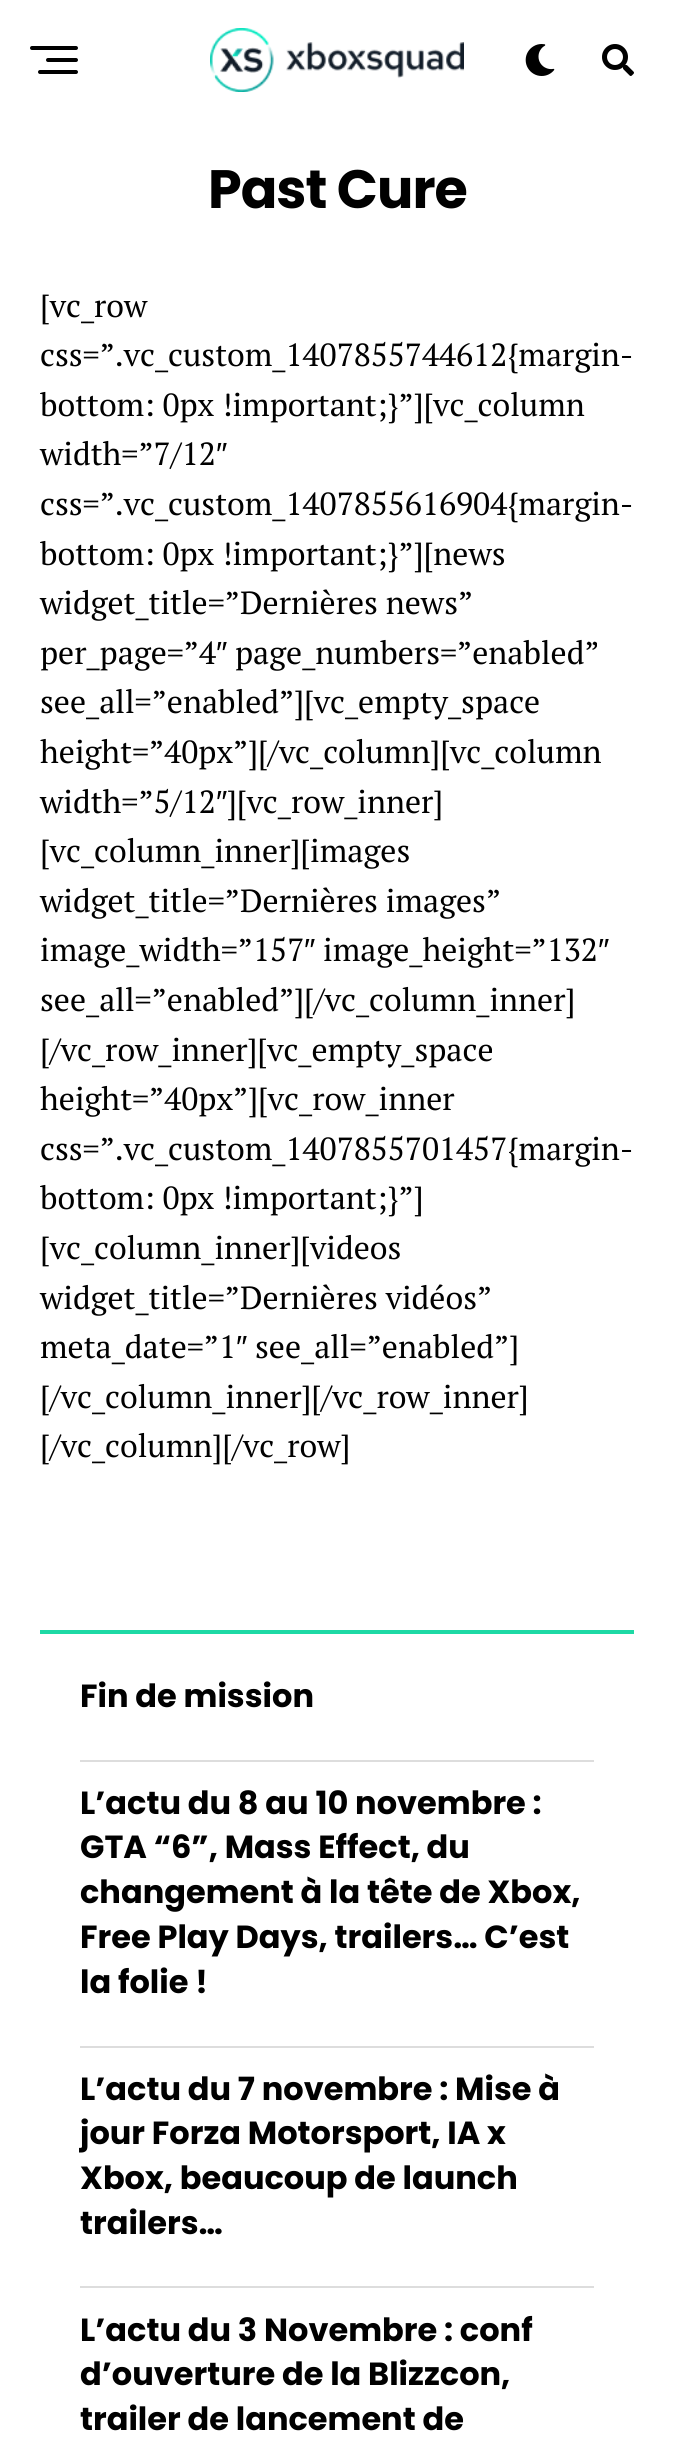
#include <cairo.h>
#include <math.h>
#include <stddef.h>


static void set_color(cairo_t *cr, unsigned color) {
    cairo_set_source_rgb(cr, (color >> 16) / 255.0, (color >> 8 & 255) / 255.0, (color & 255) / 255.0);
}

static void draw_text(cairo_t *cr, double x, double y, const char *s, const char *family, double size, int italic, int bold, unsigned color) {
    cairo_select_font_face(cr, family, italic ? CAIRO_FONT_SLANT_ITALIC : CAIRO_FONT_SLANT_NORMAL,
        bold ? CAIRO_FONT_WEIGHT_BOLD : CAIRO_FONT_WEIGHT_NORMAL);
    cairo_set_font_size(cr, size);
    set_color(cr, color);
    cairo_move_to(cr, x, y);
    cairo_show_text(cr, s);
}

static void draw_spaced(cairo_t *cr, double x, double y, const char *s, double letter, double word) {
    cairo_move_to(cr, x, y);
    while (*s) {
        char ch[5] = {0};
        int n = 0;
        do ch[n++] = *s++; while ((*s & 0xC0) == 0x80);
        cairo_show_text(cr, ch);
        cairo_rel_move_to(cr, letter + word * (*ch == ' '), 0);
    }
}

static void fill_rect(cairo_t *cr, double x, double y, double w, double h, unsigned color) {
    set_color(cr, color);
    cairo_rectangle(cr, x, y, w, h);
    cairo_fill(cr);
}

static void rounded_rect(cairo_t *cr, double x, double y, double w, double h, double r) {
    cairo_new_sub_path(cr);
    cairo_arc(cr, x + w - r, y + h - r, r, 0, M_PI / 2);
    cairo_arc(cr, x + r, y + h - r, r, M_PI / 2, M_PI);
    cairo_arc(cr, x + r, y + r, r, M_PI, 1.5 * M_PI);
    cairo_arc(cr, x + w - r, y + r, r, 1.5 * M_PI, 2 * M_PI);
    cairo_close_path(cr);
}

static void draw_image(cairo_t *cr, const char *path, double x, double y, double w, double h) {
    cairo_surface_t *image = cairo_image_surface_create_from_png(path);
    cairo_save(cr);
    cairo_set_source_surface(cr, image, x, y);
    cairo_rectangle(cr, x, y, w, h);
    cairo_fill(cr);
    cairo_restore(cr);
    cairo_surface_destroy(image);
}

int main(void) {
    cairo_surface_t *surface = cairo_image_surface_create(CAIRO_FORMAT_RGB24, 673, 2448);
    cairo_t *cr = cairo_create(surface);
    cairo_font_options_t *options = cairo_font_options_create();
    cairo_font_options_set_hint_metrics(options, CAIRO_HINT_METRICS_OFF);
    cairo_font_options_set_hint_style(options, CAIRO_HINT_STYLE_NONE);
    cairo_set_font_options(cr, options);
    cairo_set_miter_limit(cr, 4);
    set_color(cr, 0xFFFFFF);
    cairo_paint(cr);
    set_color(cr, 0x000000);
    rounded_rect(cr, 30, 46, 48, 4, 2);
    cairo_fill(cr);
    rounded_rect(cr, 46, 58, 32, 4, 2);
    cairo_fill(cr);
    rounded_rect(cr, 38, 70, 40, 4, 2);
    cairo_fill(cr);
    draw_image(cr, "assets/img1.png", 210, 28, 254, 64);
    draw_image(cr, "assets/img2.png", 525, 44, 30, 32);
    draw_image(cr, "assets/img3.png", 602, 44, 32, 32);
    cairo_select_font_face(cr, "Poppins", CAIRO_FONT_SLANT_NORMAL, CAIRO_FONT_WEIGHT_BOLD);
    cairo_set_font_size(cr, 54);
    draw_spaced(cr, 208, 208, "Past Cure", -1, 0);
    draw_text(cr, 40, 317, "[vc_row", "PT Serif", 32, 0, 0, 0x000000);
    draw_text(cr, 40, 366, "css=”.vc_custom_1407855744612{margin-", "PT Serif", 32, 0, 0, 0x000000);
    draw_text(cr, 40, 416, "bottom: 0px !important;}”][vc_column", "PT Serif", 32, 0, 0, 0x000000);
    draw_text(cr, 40, 465, "width=”7/12", "PT Serif", 32, 0, 0, 0x000000);
    draw_text(cr, 216, 465, "″", "Liberation Sans", 32, 0, 0, 0x000000);
    draw_text(cr, 40, 515, "css=”.vc_custom_1407855616904{margin-", "PT Serif", 32, 0, 0, 0x000000);
    draw_text(cr, 40, 565, "bottom: 0px !important;}”][news", "PT Serif", 32, 0, 0, 0x000000);
    draw_text(cr, 40, 614, "widget_title=”Dernières news”", "PT Serif", 32, 0, 0, 0x000000);
    draw_text(cr, 40, 664, "per_page=”4", "PT Serif", 32, 0, 0, 0x000000);
    draw_text(cr, 216, 664, "″", "Liberation Sans", 32, 0, 0, 0x000000);
    draw_text(cr, 235, 664, "page_numbers=”enabled”", "PT Serif", 32, 0, 0, 0x000000);
    draw_text(cr, 40, 713, "see_all=”enabled”][vc_empty_space", "PT Serif", 32, 0, 0, 0x000000);
    draw_text(cr, 40, 763, "height=”40px”][/vc_column][vc_column", "PT Serif", 32, 0, 0, 0x000000);
    draw_text(cr, 40, 813, "width=”5/12", "PT Serif", 32, 0, 0, 0x000000);
    draw_text(cr, 216, 813, "″", "Liberation Sans", 32, 0, 0, 0x000000);
    draw_text(cr, 227, 813, "][vc_row_inner]", "PT Serif", 32, 0, 0, 0x000000);
    draw_text(cr, 40, 862, "[vc_column_inner][images", "PT Serif", 32, 0, 0, 0x000000);
    draw_text(cr, 40, 912, "widget_title=”Dernières images”", "PT Serif", 32, 0, 0, 0x000000);
    draw_text(cr, 40, 961, "image_width=”157", "PT Serif", 32, 0, 0, 0x000000);
    draw_text(cr, 304, 961, "″", "Liberation Sans", 32, 0, 0, 0x000000);
    draw_text(cr, 323, 961, "image_height=”132", "PT Serif", 32, 0, 0, 0x000000);
    draw_text(cr, 598, 961, "″", "Liberation Sans", 32, 0, 0, 0x000000);
    draw_text(cr, 40, 1011, "see_all=”enabled”][/vc_column_inner]", "PT Serif", 32, 0, 0, 0x000000);
    draw_text(cr, 40, 1061, "[/vc_row_inner][vc_empty_space", "PT Serif", 32, 0, 0, 0x000000);
    draw_text(cr, 40, 1110, "height=”40px”][vc_row_inner", "PT Serif", 32, 0, 0, 0x000000);
    draw_text(cr, 40, 1160, "css=”.vc_custom_1407855701457{margin-", "PT Serif", 32, 0, 0, 0x000000);
    draw_text(cr, 40, 1209, "bottom: 0px !important;}”]", "PT Serif", 32, 0, 0, 0x000000);
    draw_text(cr, 40, 1259, "[vc_column_inner][videos", "PT Serif", 32, 0, 0, 0x000000);
    draw_text(cr, 40, 1309, "widget_title=”Dernières vidéos”", "PT Serif", 32, 0, 0, 0x000000);
    draw_text(cr, 40, 1358, "meta_date=”1", "PT Serif", 32, 0, 0, 0x000000);
    draw_text(cr, 236, 1358, "″", "Liberation Sans", 32, 0, 0, 0x000000);
    draw_text(cr, 255, 1358, "see_all=”enabled”]", "PT Serif", 32, 0, 0, 0x000000);
    draw_text(cr, 40, 1408, "[/vc_column_inner][/vc_row_inner]", "PT Serif", 32, 0, 0, 0x000000);
    draw_text(cr, 40, 1457, "[/vc_column][/vc_row]", "PT Serif", 32, 0, 0, 0x000000);
    fill_rect(cr, 40, 1630, 594, 4, 0x1DD9A5);
    draw_text(cr, 80, 1707, "Fin de mission", "Poppins", 32, 0, 1, 0x000000);
    fill_rect(cr, 80, 1760, 514, 2, 0xDDDDDD);
    draw_text(cr, 80, 1814, "L’actu du 8 au 10 novembre :", "Poppins", 32, 0, 1, 0x000000);
    draw_text(cr, 80, 1858, "GTA “6”, Mass Effect, du", "Poppins", 32, 0, 1, 0x000000);
    draw_text(cr, 80, 1903, "changement à la tête de Xbox,", "Poppins", 32, 0, 1, 0x000000);
    draw_text(cr, 80, 1948, "Free Play Days, trailers… C’est", "Poppins", 32, 0, 1, 0x000000);
    draw_text(cr, 80, 1993, "la folie !", "Poppins", 32, 0, 1, 0x000000);
    fill_rect(cr, 80, 2046, 514, 2, 0xDDDDDD);
    draw_text(cr, 80, 2100, "L’actu du 7 novembre : Mise à", "Poppins", 32, 0, 1, 0x000000);
    draw_text(cr, 80, 2144, "jour Forza Motorsport, IA x", "Poppins", 32, 0, 1, 0x000000);
    draw_text(cr, 80, 2189, "Xbox, beaucoup de launch", "Poppins", 32, 0, 1, 0x000000);
    draw_text(cr, 80, 2234, "trailers…", "Poppins", 32, 0, 1, 0x000000);
    fill_rect(cr, 80, 2286, 514, 2, 0xDDDDDD);
    draw_text(cr, 80, 2341, "L’actu du 3 Novembre : conf", "Poppins", 32, 0, 1, 0x000000);
    draw_text(cr, 80, 2385, "d’ouverture de la Blizzcon,", "Poppins", 32, 0, 1, 0x000000);
    draw_text(cr, 80, 2430, "trailer de lancement de", "Poppins", 32, 0, 1, 0x000000);
    cairo_surface_write_to_png(surface, "output.png");
    cairo_font_options_destroy(options);
    cairo_destroy(cr);
    cairo_surface_destroy(surface);
    return 0;
}
